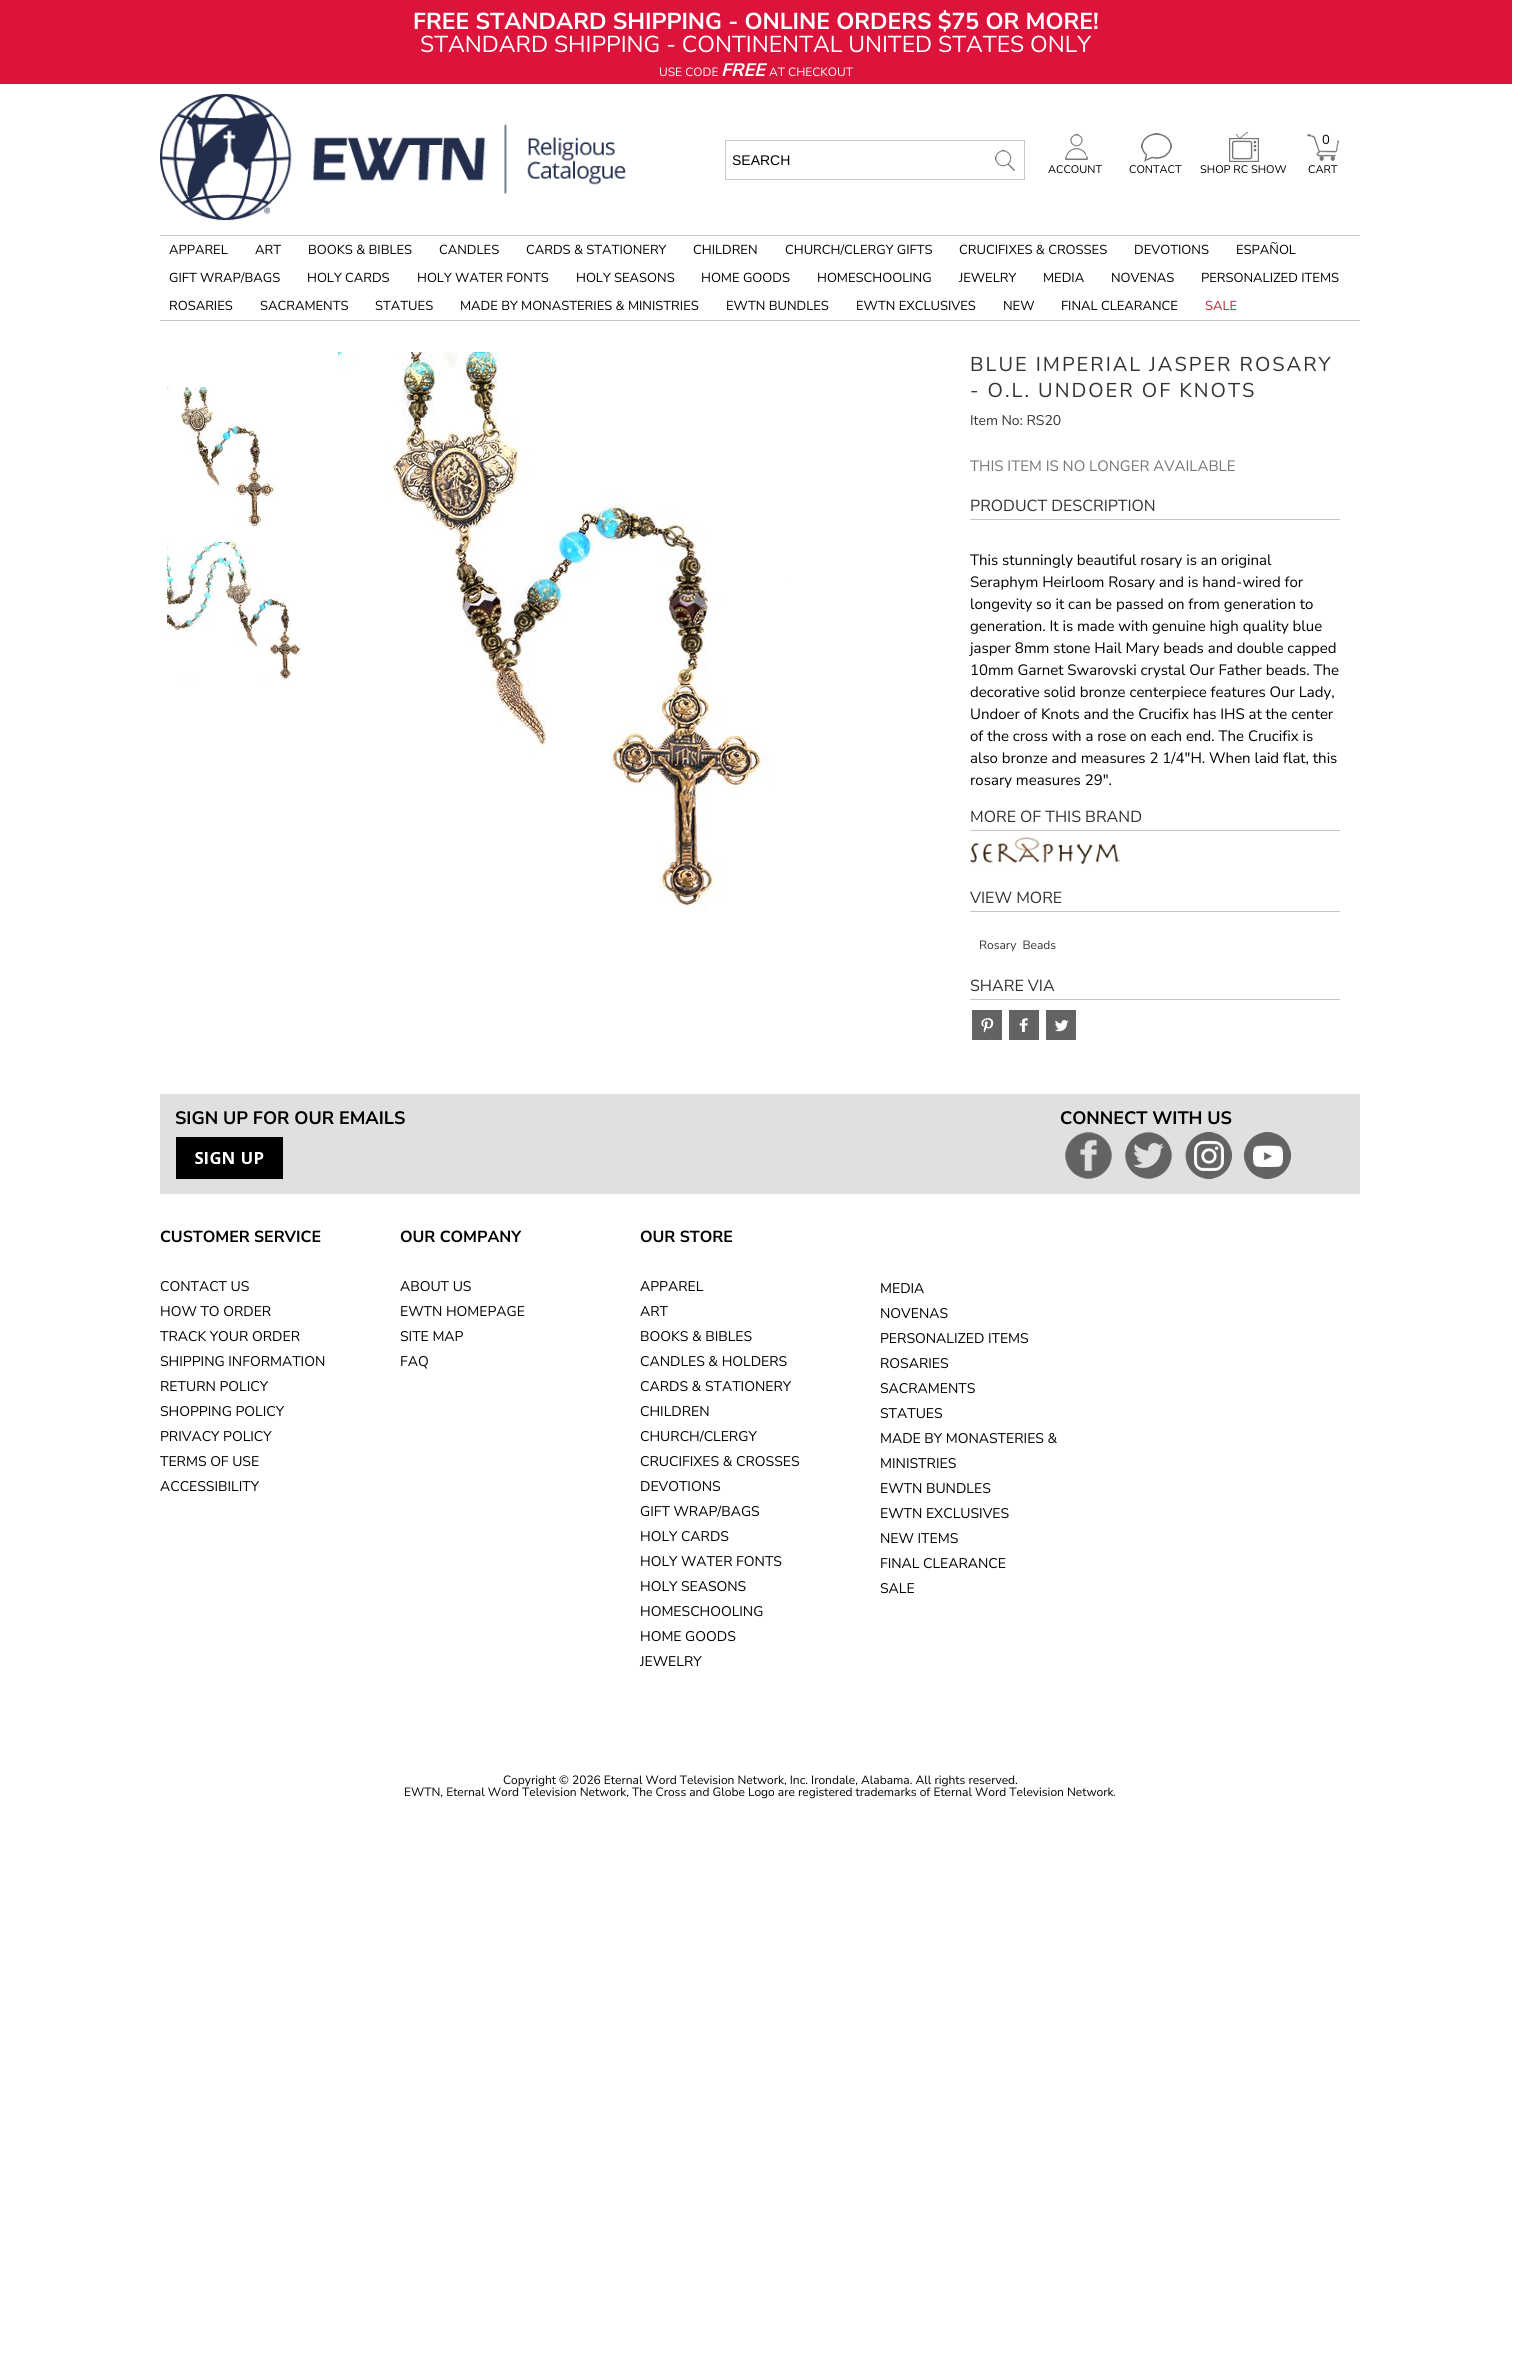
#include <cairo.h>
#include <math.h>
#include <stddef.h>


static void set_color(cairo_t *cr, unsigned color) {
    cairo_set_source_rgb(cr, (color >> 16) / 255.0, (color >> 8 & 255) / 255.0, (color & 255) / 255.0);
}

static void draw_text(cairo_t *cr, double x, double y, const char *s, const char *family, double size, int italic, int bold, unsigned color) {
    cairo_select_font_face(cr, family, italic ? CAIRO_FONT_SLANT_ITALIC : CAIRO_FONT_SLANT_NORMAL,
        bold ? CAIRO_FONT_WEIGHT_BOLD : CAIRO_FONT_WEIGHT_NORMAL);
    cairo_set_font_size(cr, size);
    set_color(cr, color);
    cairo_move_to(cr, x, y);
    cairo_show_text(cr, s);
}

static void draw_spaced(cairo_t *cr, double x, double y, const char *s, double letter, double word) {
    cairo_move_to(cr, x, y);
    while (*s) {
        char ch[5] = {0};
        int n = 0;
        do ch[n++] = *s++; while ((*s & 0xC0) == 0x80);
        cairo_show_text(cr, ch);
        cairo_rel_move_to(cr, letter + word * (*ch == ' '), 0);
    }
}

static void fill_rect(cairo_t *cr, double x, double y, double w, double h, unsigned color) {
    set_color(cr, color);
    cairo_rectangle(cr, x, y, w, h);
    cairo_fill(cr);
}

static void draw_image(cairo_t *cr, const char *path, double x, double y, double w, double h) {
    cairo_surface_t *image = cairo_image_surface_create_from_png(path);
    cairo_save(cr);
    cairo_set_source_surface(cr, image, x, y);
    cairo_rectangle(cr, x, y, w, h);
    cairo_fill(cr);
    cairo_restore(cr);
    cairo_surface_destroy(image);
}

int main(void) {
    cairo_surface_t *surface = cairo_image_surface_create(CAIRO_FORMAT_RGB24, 1520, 2364);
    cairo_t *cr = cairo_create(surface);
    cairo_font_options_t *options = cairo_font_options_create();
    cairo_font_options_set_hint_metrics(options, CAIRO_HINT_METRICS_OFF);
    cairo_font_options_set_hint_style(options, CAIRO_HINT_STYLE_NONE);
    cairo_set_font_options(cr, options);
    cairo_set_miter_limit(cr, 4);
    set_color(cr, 0xFFFFFF);
    cairo_paint(cr);
    fill_rect(cr, 0, 0, 1512, 84, 0xDC143C);
    draw_text(cr, 413, 29, "FREE STANDARD SHIPPING - ONLINE ORDERS $75 OR MORE!", "Nunito Sans", 23, 0, 1, 0xFFFFFF);
    draw_text(cr, 420, 52, "STANDARD SHIPPING - CONTINENTAL UNITED STATES ONLY", "Nunito Sans", 23, 0, 0, 0xFFFFFF);
    draw_text(cr, 659, 76, "USE CODE", "Nunito Sans", 12, 0, 0, 0xFFFFFF);
    draw_text(cr, 721, 76, "FREE", "Nunito Sans", 18, 1, 1, 0xFFFFFF);
    draw_text(cr, 769, 76, "AT CHECKOUT", "Nunito Sans", 12, 0, 0, 0xFFFFFF);
    cairo_rectangle(cr, 725.5, 140.5, 299, 39);
    set_color(cr, 0xC7C6C2);
    cairo_set_line_width(cr, 1);
    cairo_stroke(cr);
    draw_text(cr, 732, 165, "SEARCH", "Liberation Sans", 14, 0, 0, 0x000000);
    draw_image(cr, "assets/img1.png", 995, 150, 20, 21);
    draw_image(cr, "assets/img2.png", 160, 94, 466, 127);
    draw_image(cr, "assets/img3.png", 1065, 134, 23, 26);
    draw_text(cr, 1048, 173, "ACCOUNT", "Nunito Sans", 11, 0, 0, 0x000000);
    draw_image(cr, "assets/img4.png", 1141, 133, 31, 29);
    draw_text(cr, 1129, 173, "CONTACT", "Nunito Sans", 11, 0, 0, 0x000000);
    draw_image(cr, "assets/img5.png", 1229, 132, 30, 30);
    draw_text(cr, 1200, 173, "SHOP RC SHOW", "Nunito Sans", 11, 0, 0, 0x000000);
    draw_image(cr, "assets/img6.png", 1307, 134, 32, 27);
    draw_text(cr, 1322, 144, "0", "Nunito Sans", 13, 0, 0, 0x000000);
    draw_text(cr, 1308, 173, "CART", "Nunito Sans", 11, 0, 0, 0x000000);
    fill_rect(cr, 160, 235, 1200, 1, 0xC7C6C2);
    fill_rect(cr, 160, 320, 1200, 1, 0xC7C6C2);
    draw_text(cr, 169, 254, "APPAREL", "Nunito Sans", 13, 0, 0, 0x000000);
    draw_text(cr, 255, 254, "ART", "Nunito Sans", 13, 0, 0, 0x000000);
    draw_text(cr, 308, 254, "BOOKS & BIBLES", "Nunito Sans", 13, 0, 0, 0x000000);
    draw_text(cr, 439, 254, "CANDLES", "Nunito Sans", 13, 0, 0, 0x000000);
    draw_text(cr, 526, 254, "CARDS & STATIONERY", "Nunito Sans", 13, 0, 0, 0x000000);
    draw_text(cr, 693, 254, "CHILDREN", "Nunito Sans", 13, 0, 0, 0x000000);
    draw_text(cr, 785, 254, "CHURCH/CLERGY GIFTS", "Nunito Sans", 13, 0, 0, 0x000000);
    draw_text(cr, 959, 254, "CRUCIFIXES & CROSSES", "Nunito Sans", 13, 0, 0, 0x000000);
    draw_text(cr, 1134, 254, "DEVOTIONS", "Nunito Sans", 13, 0, 0, 0x000000);
    draw_text(cr, 1236, 254, "ESPAÑOL", "Nunito Sans", 13, 0, 0, 0x000000);
    draw_text(cr, 169, 282, "GIFT WRAP/BAGS", "Nunito Sans", 13, 0, 0, 0x000000);
    draw_text(cr, 307, 282, "HOLY CARDS", "Nunito Sans", 13, 0, 0, 0x000000);
    draw_text(cr, 417, 282, "HOLY WATER FONTS", "Nunito Sans", 13, 0, 0, 0x000000);
    draw_text(cr, 576, 282, "HOLY SEASONS", "Nunito Sans", 13, 0, 0, 0x000000);
    draw_text(cr, 701, 282, "HOME GOODS", "Nunito Sans", 13, 0, 0, 0x000000);
    draw_text(cr, 817, 282, "HOMESCHOOLING", "Nunito Sans", 13, 0, 0, 0x000000);
    draw_text(cr, 959, 282, "JEWELRY", "Nunito Sans", 13, 0, 0, 0x000000);
    draw_text(cr, 1043, 282, "MEDIA", "Nunito Sans", 13, 0, 0, 0x000000);
    draw_text(cr, 1111, 282, "NOVENAS", "Nunito Sans", 13, 0, 0, 0x000000);
    draw_text(cr, 1201, 282, "PERSONALIZED ITEMS", "Nunito Sans", 13, 0, 0, 0x000000);
    draw_text(cr, 169, 310, "ROSARIES", "Nunito Sans", 13, 0, 0, 0x000000);
    draw_text(cr, 260, 310, "SACRAMENTS", "Nunito Sans", 13, 0, 0, 0x000000);
    draw_text(cr, 375, 310, "STATUES", "Nunito Sans", 13, 0, 0, 0x000000);
    draw_text(cr, 460, 310, "MADE BY MONASTERIES & MINISTRIES", "Nunito Sans", 13, 0, 0, 0x000000);
    draw_text(cr, 726, 310, "EWTN BUNDLES", "Nunito Sans", 13, 0, 0, 0x000000);
    draw_text(cr, 856, 310, "EWTN EXCLUSIVES", "Nunito Sans", 13, 0, 0, 0x000000);
    draw_text(cr, 1003, 310, "NEW", "Nunito Sans", 13, 0, 0, 0x000000);
    draw_text(cr, 1061, 310, "FINAL CLEARANCE", "Nunito Sans", 13, 0, 0, 0x000000);
    draw_text(cr, 1205, 310, "SALE", "Nunito Sans", 13, 0, 0, 0xB92438);
    draw_image(cr, "assets/img7.png", 167, 387, 109, 141);
    draw_image(cr, "assets/img8.png", 167, 542, 134, 139);
    draw_image(cr, "assets/img9.png", 338, 352, 453, 560);
    cairo_set_font_size(cr, 20);
    set_color(cr, 0x333333);
    draw_spaced(cr, 970, 371, "BLUE IMPERIAL JASPER ROSARY", 2, 0);
    draw_spaced(cr, 970, 397, "- O.L. UNDOER OF KNOTS", 2, 0);
    draw_text(cr, 970, 425, "Item No: RS20", "Nunito Sans", 14, 0, 0, 0x333333);
    draw_text(cr, 970, 471, "THIS ITEM IS NO LONGER AVAILABLE", "Nunito Sans", 15, 0, 0, 0x737577);
    fill_rect(cr, 970, 519, 370, 1, 0xC7C6C2);
    draw_text(cr, 970, 511, "PRODUCT DESCRIPTION", "Nunito Sans", 16, 0, 0, 0x333333);
    draw_text(cr, 970, 565, "This stunningly beautiful rosary is an original", "Nunito Sans", 15, 0, 0, 0x000000);
    draw_text(cr, 970, 587, "Seraphym Heirloom Rosary and is hand-wired for", "Nunito Sans", 15, 0, 0, 0x000000);
    draw_text(cr, 970, 609, "longevity so it can be passed on from generation to", "Nunito Sans", 15, 0, 0, 0x000000);
    draw_text(cr, 970, 631, "generation. It is made with genuine high quality blue", "Nunito Sans", 15, 0, 0, 0x000000);
    draw_text(cr, 970, 653, "jasper 8mm stone Hail Mary beads and double capped", "Nunito Sans", 15, 0, 0, 0x000000);
    draw_text(cr, 970, 675, "10mm Garnet Swarovski crystal Our Father beads. The", "Nunito Sans", 15, 0, 0, 0x000000);
    draw_text(cr, 970, 697, "decorative solid bronze centerpiece features Our Lady,", "Nunito Sans", 15, 0, 0, 0x000000);
    draw_text(cr, 970, 719, "Undoer of Knots and the Crucifix has IHS at the center", "Nunito Sans", 15, 0, 0, 0x000000);
    draw_text(cr, 970, 741, "of the cross with a rose on each end. The Crucifix is", "Nunito Sans", 15, 0, 0, 0x000000);
    draw_text(cr, 970, 763, "also bronze and measures 2 1/4\"H. When laid flat, this", "Nunito Sans", 15, 0, 0, 0x000000);
    draw_text(cr, 970, 785, "rosary measures 29\".", "Nunito Sans", 15, 0, 0, 0x000000);
    fill_rect(cr, 970, 830, 370, 1, 0xC7C6C2);
    draw_text(cr, 970, 822, "MORE OF THIS BRAND", "Nunito Sans", 16, 0, 0, 0x333333);
    draw_image(cr, "assets/img10.png", 970, 837, 150, 28);
    fill_rect(cr, 970, 911, 370, 1, 0xC7C6C2);
    draw_text(cr, 970, 903, "VIEW MORE", "Nunito Sans", 16, 0, 0, 0x333333);
    cairo_set_font_size(cr, 12);
    draw_spaced(cr, 979, 949, "Rosary Beads", 0, 3);
    fill_rect(cr, 970, 999, 370, 1, 0xC7C6C2);
    draw_text(cr, 970, 991, "SHARE VIA", "Nunito Sans", 16, 0, 0, 0x333333);
    draw_image(cr, "assets/img11.png", 972, 1010, 30, 30);
    draw_image(cr, "assets/img12.png", 1009, 1010, 30, 30);
    draw_image(cr, "assets/img13.png", 1046, 1010, 30, 30);
    fill_rect(cr, 160, 1094, 1200, 100, 0xE0E0E0);
    draw_text(cr, 175, 1124, "SIGN UP FOR OUR EMAILS", "Nunito Sans", 18, 0, 1, 0x000000);
    draw_image(cr, "assets/img14.png", 176, 1137, 107, 42);
    draw_text(cr, 1060, 1124, "CONNECT WITH US", "Nunito Sans", 18, 0, 1, 0x000000);
    draw_image(cr, "assets/img15.png", 1065, 1132, 47, 47);
    draw_image(cr, "assets/img16.png", 1125, 1132, 47, 47);
    draw_image(cr, "assets/img17.png", 1185, 1132, 47, 47);
    draw_image(cr, "assets/img18.png", 1244, 1132, 47, 47);
    draw_text(cr, 160, 1242, "CUSTOMER SERVICE", "Nunito Sans", 16, 0, 1, 0x000000);
    draw_text(cr, 160, 1291, "CONTACT US", "Nunito Sans", 14, 0, 0, 0x000000);
    draw_text(cr, 160, 1316, "HOW TO ORDER", "Nunito Sans", 14, 0, 0, 0x000000);
    draw_text(cr, 160, 1341, "TRACK YOUR ORDER", "Nunito Sans", 14, 0, 0, 0x000000);
    draw_text(cr, 160, 1366, "SHIPPING INFORMATION", "Nunito Sans", 14, 0, 0, 0x000000);
    draw_text(cr, 160, 1391, "RETURN POLICY", "Nunito Sans", 14, 0, 0, 0x000000);
    draw_text(cr, 160, 1416, "SHOPPING POLICY", "Nunito Sans", 14, 0, 0, 0x000000);
    draw_text(cr, 160, 1441, "PRIVACY POLICY", "Nunito Sans", 14, 0, 0, 0x000000);
    draw_text(cr, 160, 1466, "TERMS OF USE", "Nunito Sans", 14, 0, 0, 0x000000);
    draw_text(cr, 160, 1491, "ACCESSIBILITY", "Nunito Sans", 14, 0, 0, 0x000000);
    draw_text(cr, 400, 1242, "OUR COMPANY", "Nunito Sans", 16, 0, 1, 0x000000);
    draw_text(cr, 400, 1291, "ABOUT US", "Nunito Sans", 14, 0, 0, 0x000000);
    draw_text(cr, 400, 1316, "EWTN HOMEPAGE", "Nunito Sans", 14, 0, 0, 0x000000);
    draw_text(cr, 400, 1341, "SITE MAP", "Nunito Sans", 14, 0, 0, 0x000000);
    draw_text(cr, 400, 1366, "FAQ", "Nunito Sans", 14, 0, 0, 0x000000);
    draw_text(cr, 640, 1242, "OUR STORE", "Nunito Sans", 16, 0, 1, 0x000000);
    draw_text(cr, 640, 1291, "APPAREL", "Nunito Sans", 14, 0, 0, 0x000000);
    draw_text(cr, 640, 1316, "ART", "Nunito Sans", 14, 0, 0, 0x000000);
    draw_text(cr, 640, 1341, "BOOKS & BIBLES", "Nunito Sans", 14, 0, 0, 0x000000);
    draw_text(cr, 640, 1366, "CANDLES & HOLDERS", "Nunito Sans", 14, 0, 0, 0x000000);
    draw_text(cr, 640, 1391, "CARDS & STATIONERY", "Nunito Sans", 14, 0, 0, 0x000000);
    draw_text(cr, 640, 1416, "CHILDREN", "Nunito Sans", 14, 0, 0, 0x000000);
    draw_text(cr, 640, 1441, "CHURCH/CLERGY", "Nunito Sans", 14, 0, 0, 0x000000);
    draw_text(cr, 640, 1466, "CRUCIFIXES & CROSSES", "Nunito Sans", 14, 0, 0, 0x000000);
    draw_text(cr, 640, 1491, "DEVOTIONS", "Nunito Sans", 14, 0, 0, 0x000000);
    draw_text(cr, 640, 1516, "GIFT WRAP/BAGS", "Nunito Sans", 14, 0, 0, 0x000000);
    draw_text(cr, 640, 1541, "HOLY CARDS", "Nunito Sans", 14, 0, 0, 0x000000);
    draw_text(cr, 640, 1566, "HOLY WATER FONTS", "Nunito Sans", 14, 0, 0, 0x000000);
    draw_text(cr, 640, 1591, "HOLY SEASONS", "Nunito Sans", 14, 0, 0, 0x000000);
    draw_text(cr, 640, 1616, "HOMESCHOOLING", "Nunito Sans", 14, 0, 0, 0x000000);
    draw_text(cr, 640, 1641, "HOME GOODS", "Nunito Sans", 14, 0, 0, 0x000000);
    draw_text(cr, 640, 1666, "JEWELRY", "Nunito Sans", 14, 0, 0, 0x000000);
    draw_text(cr, 880, 1293, "MEDIA", "Nunito Sans", 14, 0, 0, 0x000000);
    draw_text(cr, 880, 1318, "NOVENAS", "Nunito Sans", 14, 0, 0, 0x000000);
    draw_text(cr, 880, 1343, "PERSONALIZED ITEMS", "Nunito Sans", 14, 0, 0, 0x000000);
    draw_text(cr, 880, 1368, "ROSARIES", "Nunito Sans", 14, 0, 0, 0x000000);
    draw_text(cr, 880, 1393, "SACRAMENTS", "Nunito Sans", 14, 0, 0, 0x000000);
    draw_text(cr, 880, 1418, "STATUES", "Nunito Sans", 14, 0, 0, 0x000000);
    draw_text(cr, 880, 1443, "MADE BY MONASTERIES &", "Nunito Sans", 14, 0, 0, 0x000000);
    draw_text(cr, 880, 1468, "MINISTRIES", "Nunito Sans", 14, 0, 0, 0x000000);
    draw_text(cr, 880, 1493, "EWTN BUNDLES", "Nunito Sans", 14, 0, 0, 0x000000);
    draw_text(cr, 880, 1518, "EWTN EXCLUSIVES", "Nunito Sans", 14, 0, 0, 0x000000);
    draw_text(cr, 880, 1543, "NEW ITEMS", "Nunito Sans", 14, 0, 0, 0x000000);
    draw_text(cr, 880, 1568, "FINAL CLEARANCE", "Nunito Sans", 14, 0, 0, 0x000000);
    draw_text(cr, 880, 1593, "SALE", "Nunito Sans", 14, 0, 0, 0x000000);
    draw_text(cr, 503, 1784, "Copyright © 2026 Eternal Word Television Network, Inc. Irondale, Alabama. All rights reserved.", "Nunito Sans", 12, 0, 0, 0x000000);
    draw_text(cr, 404, 1796, "EWTN, Eternal Word Television Network, The Cross and Globe Logo are registered trademarks of Eternal Word Television Network.", "Nunito Sans", 12, 0, 0, 0x000000);
    cairo_surface_write_to_png(surface, "output.png");
    cairo_font_options_destroy(options);
    cairo_destroy(cr);
    cairo_surface_destroy(surface);
    return 0;
}
